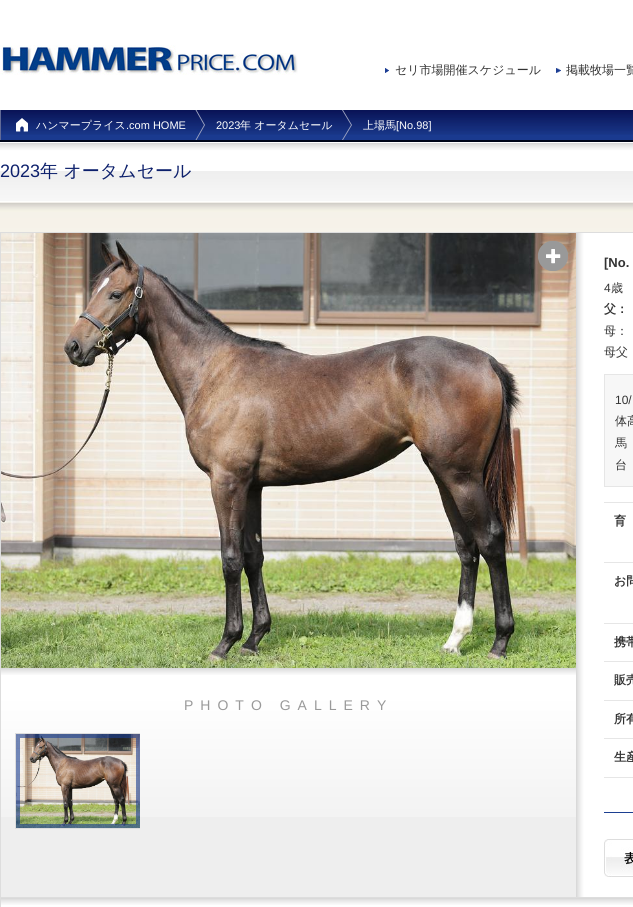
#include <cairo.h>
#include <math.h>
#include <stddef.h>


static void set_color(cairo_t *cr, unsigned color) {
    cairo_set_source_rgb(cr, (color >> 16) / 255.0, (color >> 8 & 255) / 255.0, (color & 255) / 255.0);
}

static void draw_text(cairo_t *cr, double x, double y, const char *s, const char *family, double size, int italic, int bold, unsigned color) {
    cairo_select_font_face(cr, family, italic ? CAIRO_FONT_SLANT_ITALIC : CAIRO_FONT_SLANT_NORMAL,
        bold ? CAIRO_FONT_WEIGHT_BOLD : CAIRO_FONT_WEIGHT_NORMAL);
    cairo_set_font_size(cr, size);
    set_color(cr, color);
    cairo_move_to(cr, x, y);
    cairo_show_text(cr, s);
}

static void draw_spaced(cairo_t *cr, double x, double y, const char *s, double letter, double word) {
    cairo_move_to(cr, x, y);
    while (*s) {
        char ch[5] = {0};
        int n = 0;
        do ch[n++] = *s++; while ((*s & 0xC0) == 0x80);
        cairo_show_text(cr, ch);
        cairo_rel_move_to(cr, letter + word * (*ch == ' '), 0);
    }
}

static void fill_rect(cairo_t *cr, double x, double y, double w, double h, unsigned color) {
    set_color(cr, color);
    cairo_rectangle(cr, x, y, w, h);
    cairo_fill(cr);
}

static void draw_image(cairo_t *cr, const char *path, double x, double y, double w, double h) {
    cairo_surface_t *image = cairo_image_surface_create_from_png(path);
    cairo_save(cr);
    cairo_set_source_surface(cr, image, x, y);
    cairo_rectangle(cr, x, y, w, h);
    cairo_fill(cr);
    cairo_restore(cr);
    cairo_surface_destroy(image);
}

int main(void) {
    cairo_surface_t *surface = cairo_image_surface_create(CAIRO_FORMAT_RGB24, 633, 907);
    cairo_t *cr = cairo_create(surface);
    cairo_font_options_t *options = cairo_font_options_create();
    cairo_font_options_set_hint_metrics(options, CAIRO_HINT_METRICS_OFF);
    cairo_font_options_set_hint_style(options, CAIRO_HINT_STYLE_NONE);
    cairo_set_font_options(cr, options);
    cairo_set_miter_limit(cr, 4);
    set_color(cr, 0xFFFFFF);
    cairo_paint(cr);
    draw_image(cr, "assets/img1.png", 0, 45, 298, 30);
    draw_image(cr, "assets/img2.png", 385, 68, 4, 5);
    draw_text(cr, 395, 74, "セリ市場開催スケジュール", "WenQuanYi Zen Hei Medium", 12, 0, 0, 0x333333);
    draw_image(cr, "assets/img3.png", 556, 68, 5, 5);
    draw_text(cr, 566, 74, "掲載牧場一覧", "WenQuanYi Zen Hei Medium", 12, 0, 0, 0x333333);
    fill_rect(cr, 1, 135, 632, 5, 0x1A3A8F);
    draw_image(cr, "assets/img4.png", 1, 110, 632, 25);
    fill_rect(cr, 0, 140, 633, 2, 0x00061A);
    draw_image(cr, "assets/img5.png", 16, 118, 12, 14);
    fill_rect(cr, 0, 110, 1, 30, 0x616A96);
    draw_text(cr, 36, 129, "ハンマープライス", "WenQuanYi Zen Hei Medium", 11, 0, 0, 0xFFFFFF);
    draw_text(cr, 126, 129, ".com HOME", "Liberation Sans", 11, 0, 0, 0xFFFFFF);
    set_color(cr, 0xA0A6C2);
    cairo_new_path(cr);
    cairo_move_to(cr, 195.5, 110);
    cairo_line_to(cr, 196.5, 110);
    cairo_line_to(cr, 205, 125);
    cairo_line_to(cr, 204, 125);
    cairo_close_path(cr);
    cairo_move_to(cr, 204, 125);
    cairo_line_to(cr, 205, 125);
    cairo_line_to(cr, 196.5, 140);
    cairo_line_to(cr, 195.5, 140);
    cairo_close_path(cr);
    cairo_fill(cr);
    draw_text(cr, 216, 129, "2023", "Liberation Sans", 11, 0, 0, 0xFFFFFF);
    draw_text(cr, 240, 129, "年 オータムセール", "WenQuanYi Zen Hei Medium", 11, 0, 0, 0xFFFFFF);
    set_color(cr, 0xA0A6C2);
    cairo_new_path(cr);
    cairo_move_to(cr, 342, 110);
    cairo_line_to(cr, 343, 110);
    cairo_line_to(cr, 352, 125);
    cairo_line_to(cr, 351, 125);
    cairo_close_path(cr);
    cairo_move_to(cr, 351, 125);
    cairo_line_to(cr, 352, 125);
    cairo_line_to(cr, 343, 140);
    cairo_line_to(cr, 342, 140);
    cairo_close_path(cr);
    cairo_fill(cr);
    draw_text(cr, 363, 129, "上場馬", "WenQuanYi Zen Hei Medium", 11, 0, 0, 0xFFFFFF);
    draw_text(cr, 396, 129, "[No.98]", "Liberation Sans", 11, 0, 0, 0xFFFFFF);
    draw_image(cr, "assets/img6.png", 0, 142, 633, 90);
    draw_text(cr, 0, 177, "2023", "Liberation Sans", 18, 0, 0, 0x0D206C);
    draw_text(cr, 40, 177, "年 オータムセール", "WenQuanYi Zen Hei Medium", 18, 0, 0, 0x0D206C);
    fill_rect(cr, 1, 817, 575, 80, 0xEEEEEE);
    draw_image(cr, "assets/img7.png", 1, 668, 575, 149);
    cairo_rectangle(cr, 0.5, 232.5, 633, 665);
    set_color(cr, 0xDDDDDD);
    cairo_set_line_width(cr, 1);
    cairo_stroke(cr);
    draw_image(cr, "assets/img8.png", 576, 233, 57, 664);
    draw_image(cr, "assets/img9.png", 1, 233, 575, 435);
    draw_image(cr, "assets/img10.png", 538, 241, 30, 30);
    draw_image(cr, "assets/img11.png", 1, 668, 575, 7);
    cairo_select_font_face(cr, "Liberation Sans", CAIRO_FONT_SLANT_NORMAL, CAIRO_FONT_WEIGHT_NORMAL);
    cairo_set_font_size(cr, 14);
    set_color(cr, 0x999999);
    draw_spaced(cr, 184, 710, "PHOTO GALLERY", 7, 0);
    cairo_rectangle(cr, 15.5, 733.5, 124, 95);
    set_color(cr, 0xDDDDDD);
    cairo_stroke(cr);
    draw_image(cr, "assets/img12.png", 16, 734, 124, 94);
    draw_image(cr, "assets/img13.png", 16, 734, 124, 94);
    draw_text(cr, 604, 267, "[No.", "Liberation Sans", 13, 0, 1, 0x333333);
    draw_text(cr, 604, 292, "4", "Liberation Sans", 12, 0, 0, 0x333333);
    draw_text(cr, 611, 292, "歳", "WenQuanYi Zen Hei Medium", 12, 0, 0, 0x333333);
    draw_text(cr, 604, 313, "父：", "WenQuanYi Zen Hei", 12, 0, 1, 0x333333);
    draw_text(cr, 604, 335, "母：", "WenQuanYi Zen Hei Medium", 12, 0, 0, 0x333333);
    draw_text(cr, 604, 356, "母父", "WenQuanYi Zen Hei Medium", 12, 0, 0, 0x333333);
    set_color(cr, 0xF7F7F7);
    cairo_rectangle(cr, 604.5, 374.5, 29, 112);
    cairo_fill_preserve(cr);
    set_color(cr, 0xE6E6E6);
    cairo_stroke(cr);
    draw_text(cr, 615, 404, "10/", "Liberation Sans", 12, 0, 0, 0x333333);
    draw_text(cr, 615, 425, "体高", "WenQuanYi Zen Hei Medium", 12, 0, 0, 0x333333);
    draw_text(cr, 615, 447, "馬", "WenQuanYi Zen Hei Medium", 12, 0, 0, 0x333333);
    draw_text(cr, 615, 469, "台", "WenQuanYi Zen Hei Medium", 12, 0, 0, 0x333333);
    fill_rect(cr, 604, 502, 29, 1, 0xE6E6E6);
    draw_text(cr, 614, 525, "育", "WenQuanYi Zen Hei", 12, 0, 1, 0x333333);
    fill_rect(cr, 604, 562, 29, 1, 0xE6E6E6);
    draw_text(cr, 614, 585, "お問", "WenQuanYi Zen Hei", 12, 0, 1, 0x333333);
    fill_rect(cr, 604, 623, 29, 1, 0xE6E6E6);
    draw_text(cr, 614, 646, "携帯", "WenQuanYi Zen Hei", 12, 0, 1, 0x333333);
    fill_rect(cr, 604, 661, 29, 1, 0xE6E6E6);
    draw_text(cr, 614, 684, "販売", "WenQuanYi Zen Hei", 12, 0, 1, 0x333333);
    fill_rect(cr, 604, 700, 29, 1, 0xE6E6E6);
    draw_text(cr, 614, 723, "所有", "WenQuanYi Zen Hei", 12, 0, 1, 0x333333);
    fill_rect(cr, 604, 738, 29, 1, 0xE6E6E6);
    fill_rect(cr, 604, 777, 29, 1, 0xE6E6E6);
    draw_text(cr, 614, 761, "生産", "WenQuanYi Zen Hei", 12, 0, 1, 0x333333);
    fill_rect(cr, 604, 812, 29, 1, 0x1C3F91);
    draw_image(cr, "assets/img14.png", 604, 839, 29, 38);
    draw_image(cr, "assets/img15.png", 1, 898, 632, 7);
    fill_rect(cr, 0, 898, 1, 9, 0xDDDDDD);
    cairo_surface_write_to_png(surface, "output.png");
    cairo_font_options_destroy(options);
    cairo_destroy(cr);
    cairo_surface_destroy(surface);
    return 0;
}
